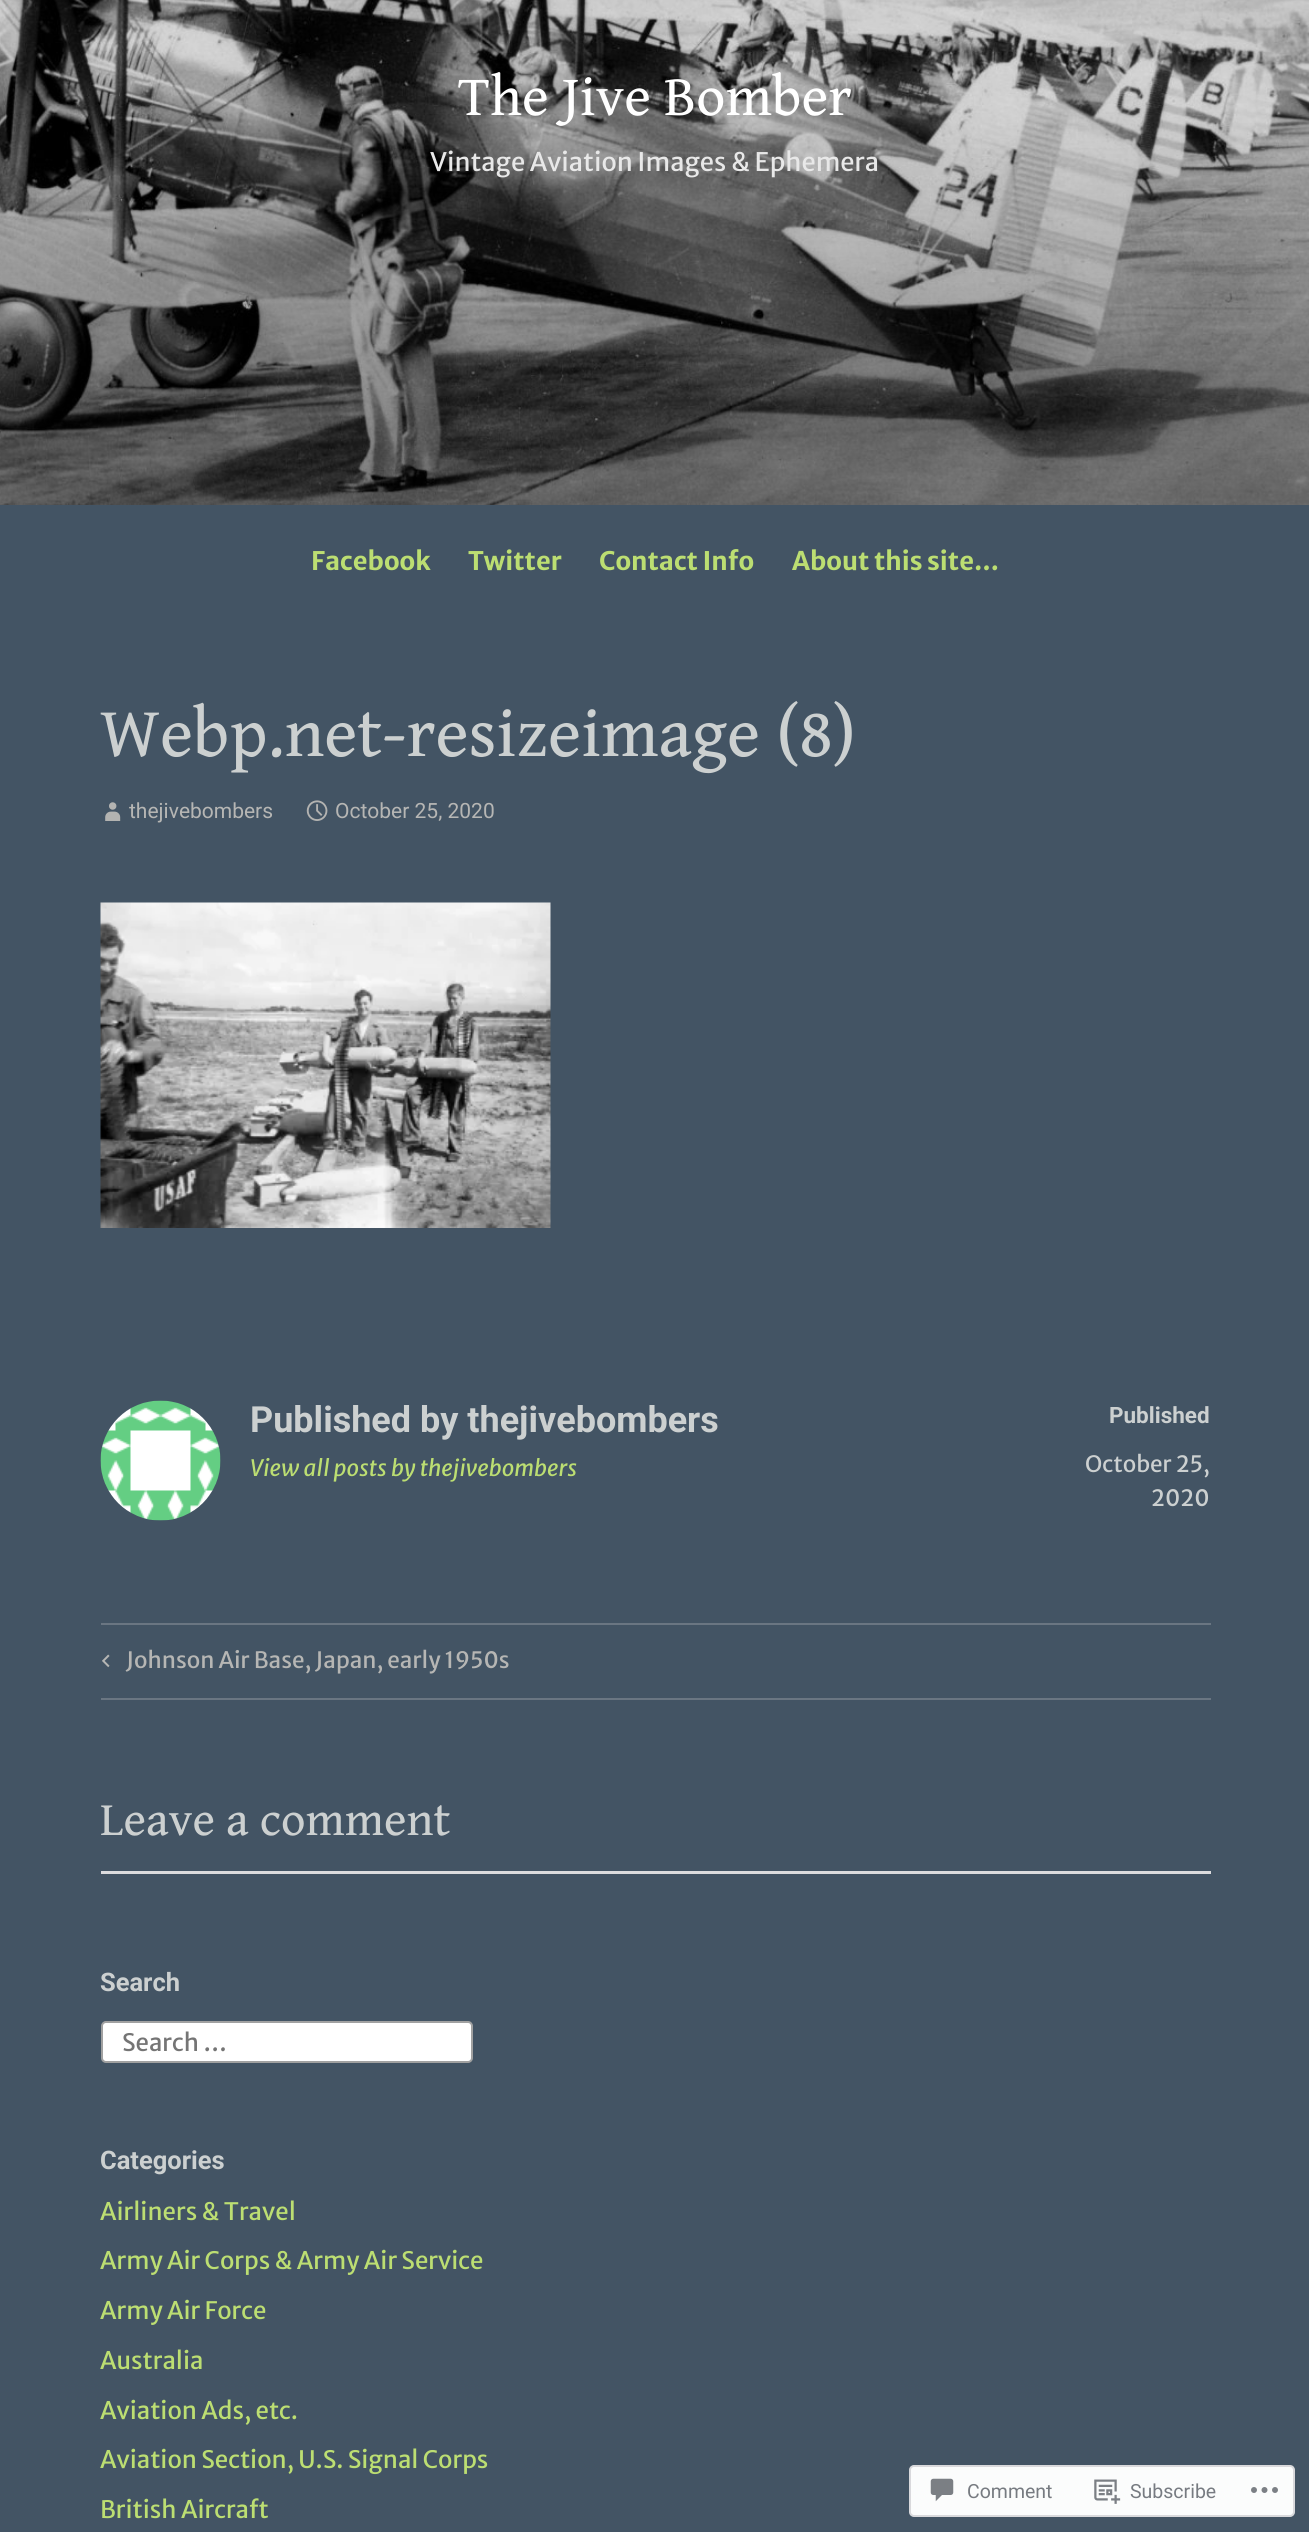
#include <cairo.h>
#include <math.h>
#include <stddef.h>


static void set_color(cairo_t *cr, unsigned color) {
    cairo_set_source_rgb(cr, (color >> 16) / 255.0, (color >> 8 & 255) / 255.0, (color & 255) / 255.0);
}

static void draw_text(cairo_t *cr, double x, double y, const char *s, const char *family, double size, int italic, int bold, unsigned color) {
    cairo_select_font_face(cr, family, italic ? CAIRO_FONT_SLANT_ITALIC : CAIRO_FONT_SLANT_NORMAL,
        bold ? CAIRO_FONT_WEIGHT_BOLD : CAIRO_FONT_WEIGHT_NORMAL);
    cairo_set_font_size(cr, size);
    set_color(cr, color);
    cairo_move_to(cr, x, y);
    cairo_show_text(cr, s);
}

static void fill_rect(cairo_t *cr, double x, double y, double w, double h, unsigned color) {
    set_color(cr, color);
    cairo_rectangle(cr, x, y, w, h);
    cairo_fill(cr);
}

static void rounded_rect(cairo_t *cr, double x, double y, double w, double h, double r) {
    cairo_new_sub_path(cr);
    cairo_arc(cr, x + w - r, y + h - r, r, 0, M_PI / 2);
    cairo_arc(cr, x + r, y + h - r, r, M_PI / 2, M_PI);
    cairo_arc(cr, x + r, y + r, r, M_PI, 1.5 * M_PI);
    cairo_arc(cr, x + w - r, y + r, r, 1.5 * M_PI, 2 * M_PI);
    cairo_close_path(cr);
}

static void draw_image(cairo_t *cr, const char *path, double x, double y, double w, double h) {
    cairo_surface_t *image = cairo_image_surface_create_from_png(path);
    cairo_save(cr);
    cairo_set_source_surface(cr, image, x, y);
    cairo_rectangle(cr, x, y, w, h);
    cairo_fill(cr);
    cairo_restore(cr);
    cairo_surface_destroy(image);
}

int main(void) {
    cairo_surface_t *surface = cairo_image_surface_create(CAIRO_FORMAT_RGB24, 1309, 2532);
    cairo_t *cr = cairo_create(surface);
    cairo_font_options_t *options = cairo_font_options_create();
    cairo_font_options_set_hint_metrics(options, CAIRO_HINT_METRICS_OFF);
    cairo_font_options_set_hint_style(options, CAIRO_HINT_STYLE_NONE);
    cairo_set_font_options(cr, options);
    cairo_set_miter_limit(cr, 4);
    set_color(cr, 0x435464);
    cairo_paint(cr);
    draw_image(cr, "assets/img1.png", 0, 0, 1309, 505);
    draw_text(cr, 458, 115, "The Jive Bomber", "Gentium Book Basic", 57, 0, 0, 0xFFFFFF);
    draw_text(cr, 430, 171, "Vintage Aviation Images & Ephemera", "Merriweather Sans", 25.5, 0, 0, 0xE8E8E8);
    draw_text(cr, 311, 570, "Facebook", "Merriweather Sans", 25.5, 0, 1, 0xBCDE72);
    draw_text(cr, 468, 570, "Twitter", "Merriweather Sans", 25.5, 0, 1, 0xBCDE72);
    draw_text(cr, 599, 570, "Contact Info", "Merriweather Sans", 25.5, 0, 1, 0xBCDE72);
    draw_text(cr, 792, 570, "About this site…", "Merriweather Sans", 25.5, 0, 1, 0xBCDE72);
    draw_text(cr, 100, 756, "Webp.net-resizeimage (8)", "Gentium Book Basic", 70.5, 0, 0, 0xCCD0D0);
    draw_image(cr, "assets/img2.png", 105, 802, 16, 19);
    draw_text(cr, 129, 818, "thejivebombers", "Roboto", 21, 0, 0, 0xB6B6B4);
    draw_image(cr, "assets/img3.png", 306, 800, 22, 21);
    draw_text(cr, 335, 818, "October 25, 2020", "Roboto", 21, 0, 0, 0xB6B6B4);
    draw_image(cr, "assets/img4.png", 100, 902, 451, 326);
    draw_image(cr, "assets/img5.png", 100, 1400, 121, 121);
    draw_text(cr, 250, 1432, "Published by thejivebombers", "Roboto", 36, 0, 1, 0xCCD0D0);
    draw_text(cr, 250, 1476, "View all posts by thejivebombers", "Merriweather Sans", 22.5, 1, 0, 0xBCDE72);
    draw_text(cr, 1109, 1423, "Published", "Roboto", 22.5, 0, 1, 0xCCD0D0);
    draw_text(cr, 1085, 1472, "October 25,", "Merriweather Sans", 22.5, 0, 0, 0xCCD0D0);
    draw_text(cr, 1151, 1506, "2020", "Merriweather Sans", 22.5, 0, 0, 0xCCD0D0);
    fill_rect(cr, 101, 1623, 1110, 2, 0x6A7682);
    fill_rect(cr, 101, 1698, 1110, 2, 0x6A7682);
    draw_image(cr, "assets/img6.png", 102, 1654, 8, 14);
    draw_text(cr, 126, 1668, "Johnson Air Base, Japan, early 1950s", "Merriweather Sans", 22.5, 0, 0, 0xB6B6B4);
    draw_text(cr, 100, 1835, "Leave a comment", "Gentium Book Basic", 48, 0, 0, 0xCCD0D0);
    fill_rect(cr, 101, 1871, 1110, 3, 0xDCDCDE);
    draw_text(cr, 100, 1991, "Search", "Roboto", 25.5, 0, 1, 0xCCD0D0);
    set_color(cr, 0xFFFFFF);
    rounded_rect(cr, 102, 2022, 370, 40, 4);
    cairo_fill_preserve(cr);
    set_color(cr, 0xA1A1A1);
    cairo_stroke(cr);
    draw_text(cr, 122, 2051, "Search …", "Merriweather Sans", 24, 0, 0, 0x757575);
    draw_text(cr, 100, 2169, "Categories", "Roboto", 25.5, 0, 1, 0xCCD0D0);
    draw_text(cr, 100, 2220, "Airliners & Travel", "Merriweather Sans", 24, 0, 0, 0xBCDE72);
    draw_text(cr, 100, 2269, "Army Air Corps & Army Air Service", "Merriweather Sans", 24, 0, 0, 0xBCDE72);
    draw_text(cr, 100, 2319, "Army Air Force", "Merriweather Sans", 24, 0, 0, 0xBCDE72);
    draw_text(cr, 100, 2369, "Australia", "Merriweather Sans", 24, 0, 0, 0xBCDE72);
    draw_text(cr, 100, 2419, "Aviation Ads, etc.", "Merriweather Sans", 24, 0, 0, 0xBCDE72);
    draw_text(cr, 100, 2468, "Aviation Section, U.S. Signal Corps", "Merriweather Sans", 24, 0, 0, 0xBCDE72);
    draw_text(cr, 100, 2518, "British Aircraft", "Merriweather Sans", 24, 0, 0, 0xBCDE72);
    set_color(cr, 0xFBFCFC);
    rounded_rect(cr, 910, 2466, 384, 50, 4);
    cairo_fill_preserve(cr);
    set_color(cr, 0xD9D9DC);
    cairo_stroke(cr);
    draw_image(cr, "assets/img7.png", 930, 2478, 24, 24);
    draw_text(cr, 967, 2498, "Comment", "Roboto", 19.5, 0, 0, 0x777B81);
    draw_image(cr, "assets/img8.png", 1094, 2479, 27, 25);
    draw_text(cr, 1130, 2498, "Subscribe", "Roboto", 19.5, 0, 0, 0x777B81);
    draw_image(cr, "assets/img9.png", 1251, 2487, 27, 6);
    cairo_surface_write_to_png(surface, "output.png");
    cairo_font_options_destroy(options);
    cairo_destroy(cr);
    cairo_surface_destroy(surface);
    return 0;
}
